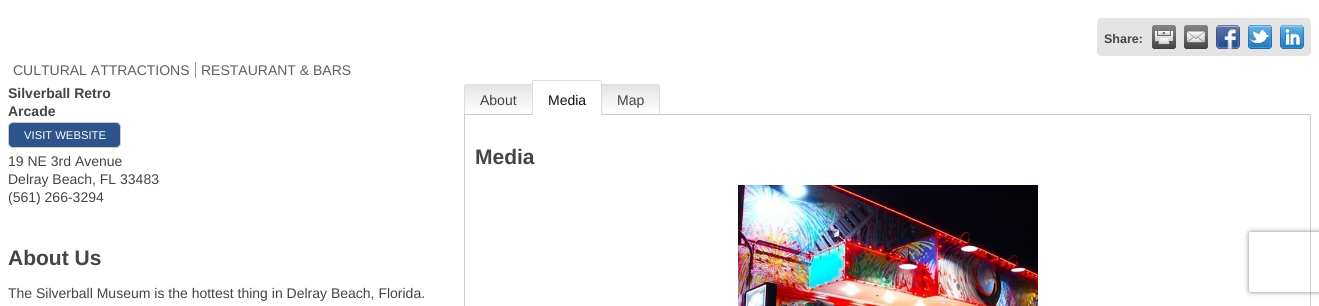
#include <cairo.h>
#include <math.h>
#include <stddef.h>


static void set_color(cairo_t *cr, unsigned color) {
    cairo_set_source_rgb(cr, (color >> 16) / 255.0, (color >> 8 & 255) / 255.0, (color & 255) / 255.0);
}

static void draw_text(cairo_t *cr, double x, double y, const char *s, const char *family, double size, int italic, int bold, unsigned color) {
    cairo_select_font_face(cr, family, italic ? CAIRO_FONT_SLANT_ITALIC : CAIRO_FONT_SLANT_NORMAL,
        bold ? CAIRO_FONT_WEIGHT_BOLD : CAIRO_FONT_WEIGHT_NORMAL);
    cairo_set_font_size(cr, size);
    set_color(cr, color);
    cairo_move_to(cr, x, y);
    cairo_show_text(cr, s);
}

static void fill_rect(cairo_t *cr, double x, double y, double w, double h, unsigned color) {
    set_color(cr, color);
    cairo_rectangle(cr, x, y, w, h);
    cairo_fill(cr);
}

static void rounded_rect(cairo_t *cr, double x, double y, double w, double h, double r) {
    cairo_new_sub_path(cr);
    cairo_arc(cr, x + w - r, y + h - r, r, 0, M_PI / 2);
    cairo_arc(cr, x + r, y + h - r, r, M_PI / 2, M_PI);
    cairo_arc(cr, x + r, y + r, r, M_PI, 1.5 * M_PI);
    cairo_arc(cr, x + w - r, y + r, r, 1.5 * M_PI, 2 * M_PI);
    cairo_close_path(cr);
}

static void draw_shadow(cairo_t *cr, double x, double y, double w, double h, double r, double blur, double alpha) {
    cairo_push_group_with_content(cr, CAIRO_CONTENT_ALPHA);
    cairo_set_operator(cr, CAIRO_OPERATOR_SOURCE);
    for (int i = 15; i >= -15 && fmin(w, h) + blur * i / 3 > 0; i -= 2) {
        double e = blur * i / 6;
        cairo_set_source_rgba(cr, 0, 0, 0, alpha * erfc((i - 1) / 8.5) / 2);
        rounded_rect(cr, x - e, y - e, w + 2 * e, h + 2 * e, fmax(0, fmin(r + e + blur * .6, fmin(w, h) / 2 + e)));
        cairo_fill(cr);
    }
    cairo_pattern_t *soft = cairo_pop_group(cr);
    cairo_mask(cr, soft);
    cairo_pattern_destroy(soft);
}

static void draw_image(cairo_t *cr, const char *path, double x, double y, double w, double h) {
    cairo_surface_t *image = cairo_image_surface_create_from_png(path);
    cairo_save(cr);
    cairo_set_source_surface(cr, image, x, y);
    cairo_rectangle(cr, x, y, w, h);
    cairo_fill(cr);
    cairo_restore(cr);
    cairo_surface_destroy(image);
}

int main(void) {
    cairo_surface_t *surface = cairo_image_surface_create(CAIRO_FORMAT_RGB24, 1319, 306);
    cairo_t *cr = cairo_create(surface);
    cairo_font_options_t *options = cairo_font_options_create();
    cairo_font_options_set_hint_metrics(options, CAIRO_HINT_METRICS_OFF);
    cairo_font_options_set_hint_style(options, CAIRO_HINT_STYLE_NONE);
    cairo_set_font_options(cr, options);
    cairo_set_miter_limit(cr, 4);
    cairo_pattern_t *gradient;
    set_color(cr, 0xFFFFFF);
    cairo_paint(cr);
    set_color(cr, 0xE4E4E4);
    rounded_rect(cr, 1097, 18, 214, 38, 5);
    cairo_fill(cr);
    draw_text(cr, 1104, 43, "Share:", "Liberation Sans", 12.5, 0, 1, 0x444444);
    draw_image(cr, "assets/img1.png", 1152, 25, 24, 24);
    draw_image(cr, "assets/img2.png", 1184, 25, 24, 24);
    draw_image(cr, "assets/img3.png", 1216, 25, 24, 24);
    draw_image(cr, "assets/img4.png", 1248, 25, 24, 24);
    draw_image(cr, "assets/img5.png", 1280, 25, 24, 24);
    draw_text(cr, 13, 75, "CULTURAL ATTRACTIONS", "Liberation Sans", 14, 0, 0, 0x5E5E5E);
    draw_text(cr, 201, 75, "RESTAURANT & BARS", "Liberation Sans", 14, 0, 0, 0x5E5E5E);
    fill_rect(cr, 195, 62, 1, 16, 0x999999);
    draw_text(cr, 8, 98, "Silverball Retro", "Liberation Sans", 14, 0, 1, 0x444444);
    draw_text(cr, 8, 116, "Arcade", "Liberation Sans", 14, 0, 1, 0x444444);
    set_color(cr, 0x2D548B);
    rounded_rect(cr, 8.5, 122.5, 112, 25, 4.5);
    cairo_fill_preserve(cr);
    set_color(cr, 0xCCCCCC);
    cairo_set_line_width(cr, 1);
    cairo_stroke(cr);
    draw_text(cr, 24, 139, "VISIT WEBSITE", "Liberation Sans", 11.25, 0, 0, 0xFFFFFF);
    draw_text(cr, 8, 166, "19 NE 3rd Avenue", "Liberation Sans", 14, 0, 0, 0x444444);
    draw_text(cr, 8, 184, "Delray Beach, FL 33483", "Liberation Sans", 14, 0, 0, 0x444444);
    draw_text(cr, 8, 202, "(561) 266-3294", "Liberation Sans", 14, 0, 0, 0x444444);
    draw_text(cr, 8, 265, "About Us", "Liberation Sans", 21, 0, 1, 0x444444);
    draw_text(cr, 8, 298, "The Silverball Museum is the hottest thing in Delray Beach, Florida.", "Liberation Sans", 14, 0, 0, 0x444444);
    gradient = cairo_pattern_create_linear(499, 85, 499, 114);
    cairo_pattern_add_color_stop_rgba(gradient, 0, 0.894, 0.894, 0.894, 1);
    cairo_pattern_add_color_stop_rgba(gradient, 1, 1, 1, 1, 1);
    cairo_set_source(cr, gradient);
    cairo_pattern_destroy(gradient);
    cairo_new_path(cr);
    cairo_move_to(cr, 466, 85);
    cairo_line_to(cr, 532, 85);
    cairo_line_to(cr, 532, 114);
    cairo_line_to(cr, 465, 114);
    cairo_line_to(cr, 465, 86);
    cairo_curve_to(cr, 465, 85.5, 465.5, 85, 466, 85);
    cairo_close_path(cr);
    cairo_fill(cr);
    fill_rect(cr, 465, 84, 68, 1, 0xDDDDDD);
    fill_rect(cr, 464, 85, 1, 29, 0xDDDDDD);
    draw_text(cr, 480, 105, "About", "Liberation Sans", 14, 0, 0, 0x444444);
    cairo_rectangle(cr, 464.5, 114.5, 846, 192);
    set_color(cr, 0xCCCCCC);
    cairo_stroke(cr);
    set_color(cr, 0xFFFFFF);
    cairo_new_path(cr);
    cairo_move_to(cr, 534, 81);
    cairo_line_to(cr, 600, 81);
    cairo_curve_to(cr, 600.5, 81, 601, 81.5, 601, 82);
    cairo_line_to(cr, 601, 115);
    cairo_line_to(cr, 533, 115);
    cairo_line_to(cr, 533, 82);
    cairo_curve_to(cr, 533, 81.5, 533.5, 81, 534, 81);
    cairo_close_path(cr);
    cairo_fill(cr);
    fill_rect(cr, 533, 80, 68, 1, 0xDDDDDD);
    fill_rect(cr, 601, 81, 1, 34, 0xDDDDDD);
    fill_rect(cr, 532, 81, 1, 34, 0xDDDDDD);
    draw_text(cr, 548, 105, "Media", "Liberation Sans", 14, 0, 0, 0x111111);
    gradient = cairo_pattern_create_linear(631, 85, 631, 114);
    cairo_pattern_add_color_stop_rgba(gradient, 0, 0.894, 0.894, 0.894, 1);
    cairo_pattern_add_color_stop_rgba(gradient, 1, 1, 1, 1, 1);
    cairo_set_source(cr, gradient);
    cairo_pattern_destroy(gradient);
    cairo_new_path(cr);
    cairo_move_to(cr, 602, 85);
    cairo_line_to(cr, 658, 85);
    cairo_curve_to(cr, 658.5, 85, 659, 85.5, 659, 86);
    cairo_line_to(cr, 659, 114);
    cairo_line_to(cr, 602, 114);
    cairo_close_path(cr);
    cairo_fill(cr);
    fill_rect(cr, 602, 84, 57, 1, 0xDDDDDD);
    fill_rect(cr, 659, 85, 1, 29, 0xDDDDDD);
    draw_text(cr, 617, 105, "Map", "Liberation Sans", 14, 0, 0, 0x444444);
    draw_text(cr, 475, 164, "Media", "Liberation Sans", 21, 0, 1, 0x444444);
    draw_image(cr, "assets/img6.png", 738, 185, 300, 121);
    cairo_save(cr);
    cairo_set_fill_rule(cr, CAIRO_FILL_RULE_EVEN_ODD);
    cairo_new_path(cr);
    cairo_move_to(cr, 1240, 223);
    cairo_line_to(cr, 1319, 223);
    cairo_line_to(cr, 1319, 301);
    cairo_line_to(cr, 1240, 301);
    cairo_close_path(cr);
    cairo_move_to(cr, 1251, 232);
    cairo_line_to(cr, 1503, 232);
    cairo_curve_to(cr, 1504, 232, 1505, 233, 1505, 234);
    cairo_line_to(cr, 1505, 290);
    cairo_curve_to(cr, 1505, 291, 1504, 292, 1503, 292);
    cairo_line_to(cr, 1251, 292);
    cairo_curve_to(cr, 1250, 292, 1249, 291, 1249, 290);
    cairo_line_to(cr, 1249, 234);
    cairo_curve_to(cr, 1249, 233, 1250, 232, 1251, 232);
    cairo_close_path(cr);
    cairo_clip(cr);
    set_color(cr, 0x808080);
    draw_shadow(cr, 1249, 232, 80, 60, 2, 2.5, 1);
    cairo_restore(cr);
    cairo_surface_write_to_png(surface, "output.png");
    cairo_font_options_destroy(options);
    cairo_destroy(cr);
    cairo_surface_destroy(surface);
    return 0;
}
